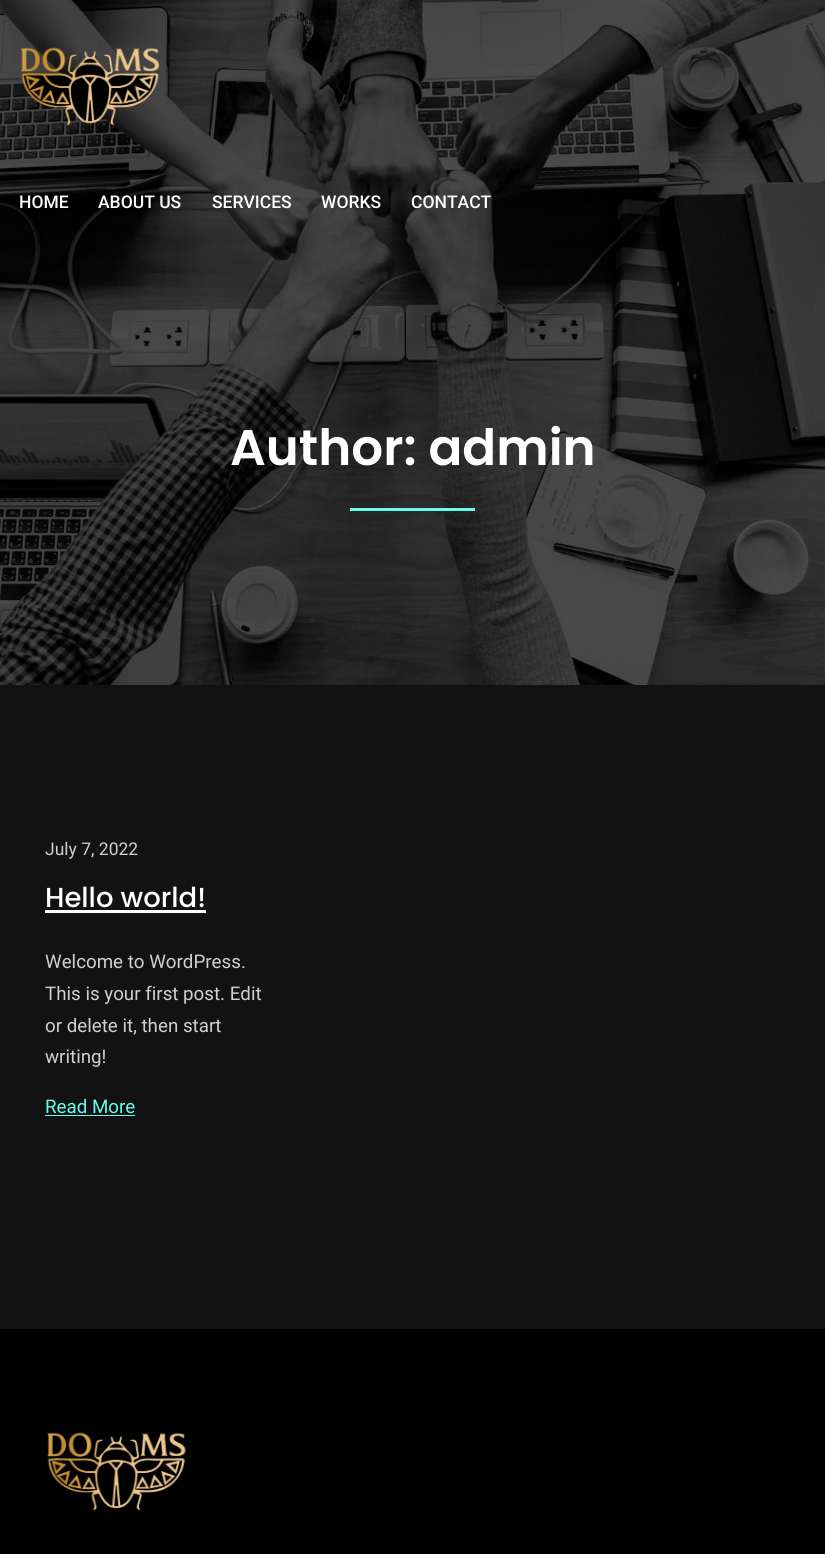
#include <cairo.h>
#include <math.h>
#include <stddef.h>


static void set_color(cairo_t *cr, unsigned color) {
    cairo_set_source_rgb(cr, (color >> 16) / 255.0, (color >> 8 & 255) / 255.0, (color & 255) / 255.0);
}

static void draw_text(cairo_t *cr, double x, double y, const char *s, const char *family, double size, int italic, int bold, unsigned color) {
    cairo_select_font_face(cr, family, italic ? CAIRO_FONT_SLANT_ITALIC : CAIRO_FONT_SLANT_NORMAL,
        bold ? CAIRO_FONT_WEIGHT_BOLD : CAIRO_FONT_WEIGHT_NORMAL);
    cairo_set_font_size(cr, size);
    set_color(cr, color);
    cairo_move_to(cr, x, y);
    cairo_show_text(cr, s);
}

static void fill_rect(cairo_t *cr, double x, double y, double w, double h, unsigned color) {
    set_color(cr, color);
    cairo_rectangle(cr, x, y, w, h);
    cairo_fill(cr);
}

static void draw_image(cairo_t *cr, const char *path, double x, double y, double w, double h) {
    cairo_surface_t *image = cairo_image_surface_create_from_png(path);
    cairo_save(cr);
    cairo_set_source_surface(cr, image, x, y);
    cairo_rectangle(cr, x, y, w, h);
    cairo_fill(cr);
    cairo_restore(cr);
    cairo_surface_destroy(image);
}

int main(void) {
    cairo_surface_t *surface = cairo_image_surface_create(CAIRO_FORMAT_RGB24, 825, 1554);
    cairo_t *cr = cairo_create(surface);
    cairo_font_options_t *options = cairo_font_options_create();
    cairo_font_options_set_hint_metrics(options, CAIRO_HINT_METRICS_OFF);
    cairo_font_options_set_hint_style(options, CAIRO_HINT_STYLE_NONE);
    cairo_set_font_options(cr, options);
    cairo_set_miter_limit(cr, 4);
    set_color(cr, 0x000001);
    cairo_paint(cr);
    draw_image(cr, "assets/img1.png", 0, 0, 825, 685);
    draw_image(cr, "assets/img2.png", 20, 47, 140, 79);
    draw_text(cr, 19, 208, "HOME", "Roboto Medium", 17.5, 0, 0, 0xFFFFFF);
    draw_text(cr, 98, 208, "ABOUT US", "Roboto Medium", 17.5, 0, 0, 0xFFFFFF);
    draw_text(cr, 212, 208, "SERVICES", "Roboto Medium", 17.5, 0, 0, 0xFFFFFF);
    draw_text(cr, 321, 208, "WORKS", "Roboto Medium", 17.5, 0, 0, 0xFFFFFF);
    draw_text(cr, 411, 208, "CONTACT", "Roboto Medium", 17.5, 0, 0, 0xFFFFFF);
    draw_text(cr, 230, 465, "Author: admin", "Poppins SemiBold", 50, 0, 0, 0xFFFFFF);
    fill_rect(cr, 350, 508, 125, 3, 0x66FCF1);
    fill_rect(cr, 0, 685, 825, 644, 0x121212);
    draw_text(cr, 45, 855, "July 7, 2022", "Roboto", 17.5, 0, 0, 0xD0D0D0);
    draw_text(cr, 45, 907, "Hello world!", "Poppins Medium", 27.5, 0, 0, 0xFFFFFF);
    fill_rect(cr, 45, 910, 161, 3, 0xFFFFFF);
    draw_text(cr, 45, 968, "Welcome to WordPress.", "Roboto", 18.75, 0, 0, 0xD0D0D0);
    draw_text(cr, 45, 1000, "This is your first post. Edit", "Roboto", 18.75, 0, 0, 0xD0D0D0);
    draw_text(cr, 45, 1032, "or delete it, then start", "Roboto", 18.75, 0, 0, 0xD0D0D0);
    draw_text(cr, 45, 1063, "writing!", "Roboto", 18.75, 0, 0, 0xD0D0D0);
    draw_text(cr, 45, 1113, "Read More", "Roboto", 18.75, 0, 0, 0x66FCF1);
    fill_rect(cr, 45, 1115, 90, 1, 0x66FCF1);
    draw_image(cr, "assets/img3.png", 47, 1432, 139, 79);
    cairo_surface_write_to_png(surface, "output.png");
    cairo_font_options_destroy(options);
    cairo_destroy(cr);
    cairo_surface_destroy(surface);
    return 0;
}
